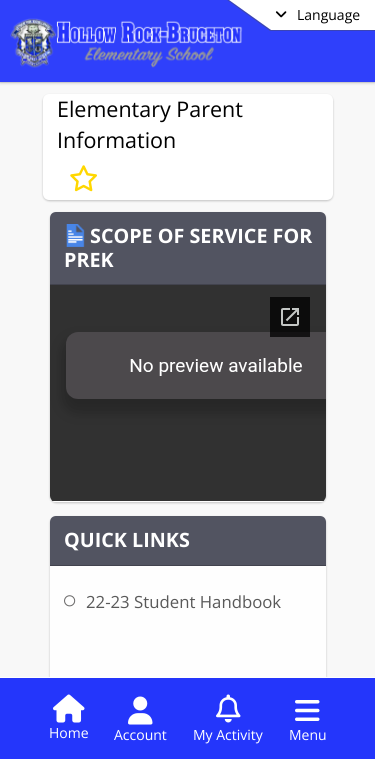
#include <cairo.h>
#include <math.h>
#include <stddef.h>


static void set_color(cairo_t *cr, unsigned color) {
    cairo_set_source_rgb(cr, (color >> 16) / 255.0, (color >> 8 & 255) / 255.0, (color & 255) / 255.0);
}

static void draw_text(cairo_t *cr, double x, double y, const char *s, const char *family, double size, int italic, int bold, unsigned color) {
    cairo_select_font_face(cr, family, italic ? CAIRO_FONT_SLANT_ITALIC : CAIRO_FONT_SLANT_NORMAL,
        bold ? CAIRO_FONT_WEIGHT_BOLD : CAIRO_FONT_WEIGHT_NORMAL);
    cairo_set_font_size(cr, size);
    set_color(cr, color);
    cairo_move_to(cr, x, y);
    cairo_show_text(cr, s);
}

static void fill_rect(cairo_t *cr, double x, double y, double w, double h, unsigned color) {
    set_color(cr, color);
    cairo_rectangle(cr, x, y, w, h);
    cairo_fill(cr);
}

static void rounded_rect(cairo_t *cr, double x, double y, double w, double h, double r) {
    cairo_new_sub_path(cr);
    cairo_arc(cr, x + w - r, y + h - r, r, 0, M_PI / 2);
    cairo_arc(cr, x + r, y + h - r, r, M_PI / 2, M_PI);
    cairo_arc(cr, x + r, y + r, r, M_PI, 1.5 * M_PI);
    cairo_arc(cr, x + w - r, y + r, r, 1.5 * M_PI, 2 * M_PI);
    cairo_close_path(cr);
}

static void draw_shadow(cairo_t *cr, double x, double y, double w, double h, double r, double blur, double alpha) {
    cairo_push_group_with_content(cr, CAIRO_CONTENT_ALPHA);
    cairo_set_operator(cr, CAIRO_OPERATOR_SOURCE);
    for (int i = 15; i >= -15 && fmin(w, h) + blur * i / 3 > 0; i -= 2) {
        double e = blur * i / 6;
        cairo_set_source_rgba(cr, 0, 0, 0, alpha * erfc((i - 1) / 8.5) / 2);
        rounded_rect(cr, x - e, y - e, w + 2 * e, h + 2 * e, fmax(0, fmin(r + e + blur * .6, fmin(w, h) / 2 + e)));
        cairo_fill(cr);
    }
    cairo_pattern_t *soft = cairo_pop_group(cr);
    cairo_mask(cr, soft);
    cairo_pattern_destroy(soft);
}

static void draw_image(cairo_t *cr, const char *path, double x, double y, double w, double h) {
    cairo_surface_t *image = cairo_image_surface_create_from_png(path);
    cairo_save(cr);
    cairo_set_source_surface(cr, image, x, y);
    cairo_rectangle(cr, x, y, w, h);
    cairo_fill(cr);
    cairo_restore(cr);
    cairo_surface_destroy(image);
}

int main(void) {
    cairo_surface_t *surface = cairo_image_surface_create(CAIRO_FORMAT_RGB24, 375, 759);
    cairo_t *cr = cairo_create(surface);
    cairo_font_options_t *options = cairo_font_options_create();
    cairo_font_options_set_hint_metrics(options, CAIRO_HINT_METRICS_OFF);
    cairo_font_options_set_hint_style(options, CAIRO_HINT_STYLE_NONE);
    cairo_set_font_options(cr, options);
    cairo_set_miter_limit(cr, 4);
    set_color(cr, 0xF8F8F8);
    cairo_paint(cr);
    fill_rect(cr, 0, 82, 375, 1, 0xDFDFDF);
    set_color(cr, 0x000000);
    draw_shadow(cr, 0, 2, 375, 82, 0, 1, 0.1);
    fill_rect(cr, 0, 0, 375, 82, 0x2F40FB);
    draw_image(cr, "assets/img2.png", 10, 18, 233, 50);
    set_color(cr, 0x3B45B5);
    cairo_new_path(cr);
    cairo_move_to(cr, 227, 0);
    cairo_line_to(cr, 270, 31);
    cairo_line_to(cr, 375, 31);
    cairo_line_to(cr, 375, 0);
    cairo_close_path(cr);
    cairo_fill(cr);
    set_color(cr, 0xFFFFFF);
    cairo_new_path(cr);
    cairo_move_to(cr, 229, 0);
    cairo_line_to(cr, 271, 30);
    cairo_line_to(cr, 375, 30);
    cairo_line_to(cr, 375, 0);
    cairo_close_path(cr);
    cairo_fill(cr);
    draw_image(cr, "assets/img1.png", 275, 11, 12, 7);
    draw_text(cr, 297, 20, "Language", "Open Sans", 14, 0, 0, 0x000000);
    set_color(cr, 0x000000);
    draw_shadow(cr, 43, 95, 290, 106, 6, 1, 0.22);
    set_color(cr, 0xFFFFFF);
    rounded_rect(cr, 43, 94, 290, 106, 6);
    cairo_fill(cr);
    draw_text(cr, 57, 117, "Elementary Parent", "Open Sans", 21.5, 0, 0, 0x000000);
    draw_text(cr, 57, 148, "Information", "Open Sans", 21.5, 0, 0, 0x000000);
    draw_image(cr, "assets/img3.png", 70, 165, 27, 27);
    cairo_save(cr);
    cairo_set_fill_rule(cr, CAIRO_FILL_RULE_EVEN_ODD);
    cairo_new_path(cr);
    cairo_move_to(cr, 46, 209);
    cairo_line_to(cr, 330, 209);
    cairo_line_to(cr, 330, 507);
    cairo_line_to(cr, 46, 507);
    cairo_close_path(cr);
    cairo_move_to(cr, 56, 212);
    cairo_line_to(cr, 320, 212);
    cairo_curve_to(cr, 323.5, 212, 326, 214.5, 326, 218);
    cairo_line_to(cr, 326, 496);
    cairo_curve_to(cr, 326, 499.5, 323.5, 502, 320, 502);
    cairo_line_to(cr, 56, 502);
    cairo_curve_to(cr, 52.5, 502, 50, 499.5, 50, 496);
    cairo_line_to(cr, 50, 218);
    cairo_curve_to(cr, 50, 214.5, 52.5, 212, 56, 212);
    cairo_close_path(cr);
    cairo_clip(cr);
    set_color(cr, 0x000000);
    draw_shadow(cr, 50, 213, 276, 290, 6, 1, 0.22);
    cairo_restore(cr);
    cairo_set_source_rgba(cr, 1, 1, 1, 0.9);
    rounded_rect(cr, 50, 212, 276, 290, 6);
    cairo_fill(cr);
    set_color(cr, 0x525461);
    cairo_new_path(cr);
    cairo_move_to(cr, 56, 212);
    cairo_line_to(cr, 320, 212);
    cairo_curve_to(cr, 323.5, 212, 326, 214.5, 326, 218);
    cairo_line_to(cr, 326, 285);
    cairo_line_to(cr, 50, 285);
    cairo_line_to(cr, 50, 218);
    cairo_curve_to(cr, 50, 214.5, 52.5, 212, 56, 212);
    cairo_close_path(cr);
    cairo_fill(cr);
    fill_rect(cr, 50, 284, 276, 1, 0x42434E);
    draw_image(cr, "assets/img4.png", 66, 224, 19, 23);
    draw_text(cr, 90, 243, "SCOPE OF SERVICE FOR", "Open Sans", 19.75, 0, 1, 0xFFFFFF);
    draw_text(cr, 64, 267, "PREK", "Open Sans", 19.75, 0, 1, 0xFFFFFF);
    draw_image(cr, "assets/img5.png", 50, 285, 276, 216);
    cairo_save(cr);
    cairo_set_fill_rule(cr, CAIRO_FILL_RULE_EVEN_ODD);
    cairo_new_path(cr);
    cairo_move_to(cr, 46, 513);
    cairo_line_to(cr, 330, 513);
    cairo_line_to(cr, 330, 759);
    cairo_line_to(cr, 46, 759);
    cairo_close_path(cr);
    cairo_move_to(cr, 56, 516);
    cairo_line_to(cr, 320, 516);
    cairo_curve_to(cr, 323.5, 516, 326, 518.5, 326, 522);
    cairo_line_to(cr, 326, 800);
    cairo_curve_to(cr, 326, 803.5, 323.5, 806, 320, 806);
    cairo_line_to(cr, 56, 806);
    cairo_curve_to(cr, 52.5, 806, 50, 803.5, 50, 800);
    cairo_line_to(cr, 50, 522);
    cairo_curve_to(cr, 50, 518.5, 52.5, 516, 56, 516);
    cairo_close_path(cr);
    cairo_clip(cr);
    set_color(cr, 0x000000);
    draw_shadow(cr, 50, 517, 276, 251, 6, 1, 0.22);
    cairo_restore(cr);
    cairo_set_source_rgba(cr, 1, 1, 1, 0.9);
    rounded_rect(cr, 50, 516, 276, 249, 6);
    cairo_fill(cr);
    set_color(cr, 0x525461);
    cairo_new_path(cr);
    cairo_move_to(cr, 56, 516);
    cairo_line_to(cr, 320, 516);
    cairo_curve_to(cr, 323.5, 516, 326, 518.5, 326, 522);
    cairo_line_to(cr, 326, 566);
    cairo_line_to(cr, 50, 566);
    cairo_line_to(cr, 50, 522);
    cairo_curve_to(cr, 50, 518.5, 52.5, 516, 56, 516);
    cairo_close_path(cr);
    cairo_fill(cr);
    fill_rect(cr, 50, 565, 276, 1, 0x42434E);
    draw_text(cr, 64, 547, "QUICK LINKS", "Open Sans", 19.75, 0, 1, 0xFFFFFF);
    draw_image(cr, "assets/img6.png", 64, 595, 12, 12);
    draw_text(cr, 86, 608, "22-23 Student Handbook", "Open Sans", 16.75, 0, 0, 0x595959);
    fill_rect(cr, 0, 678, 375, 81, 0x2436FB);
    fill_rect(cr, 0, 677, 375, 1, 0xFFFFFF);
    draw_image(cr, "assets/img7.png", 53, 694, 32, 29);
    draw_text(cr, 49, 738, "Home", "Open Sans", 14, 0, 0, 0xFFFFFF);
    draw_image(cr, "assets/img8.png", 128, 696, 25, 29);
    draw_text(cr, 114, 740, "Account", "Open Sans", 14, 0, 0, 0xFFFFFF);
    draw_image(cr, "assets/img9.png", 216, 694, 25, 29);
    draw_text(cr, 193, 740, "My Activity", "Open Sans", 14, 0, 0, 0xFFFFFF);
    draw_image(cr, "assets/img10.png", 295, 700, 25, 21);
    draw_text(cr, 289, 740, "Menu", "Open Sans", 14, 0, 0, 0xFFFFFF);
    cairo_surface_write_to_png(surface, "output.png");
    cairo_font_options_destroy(options);
    cairo_destroy(cr);
    cairo_surface_destroy(surface);
    return 0;
}
